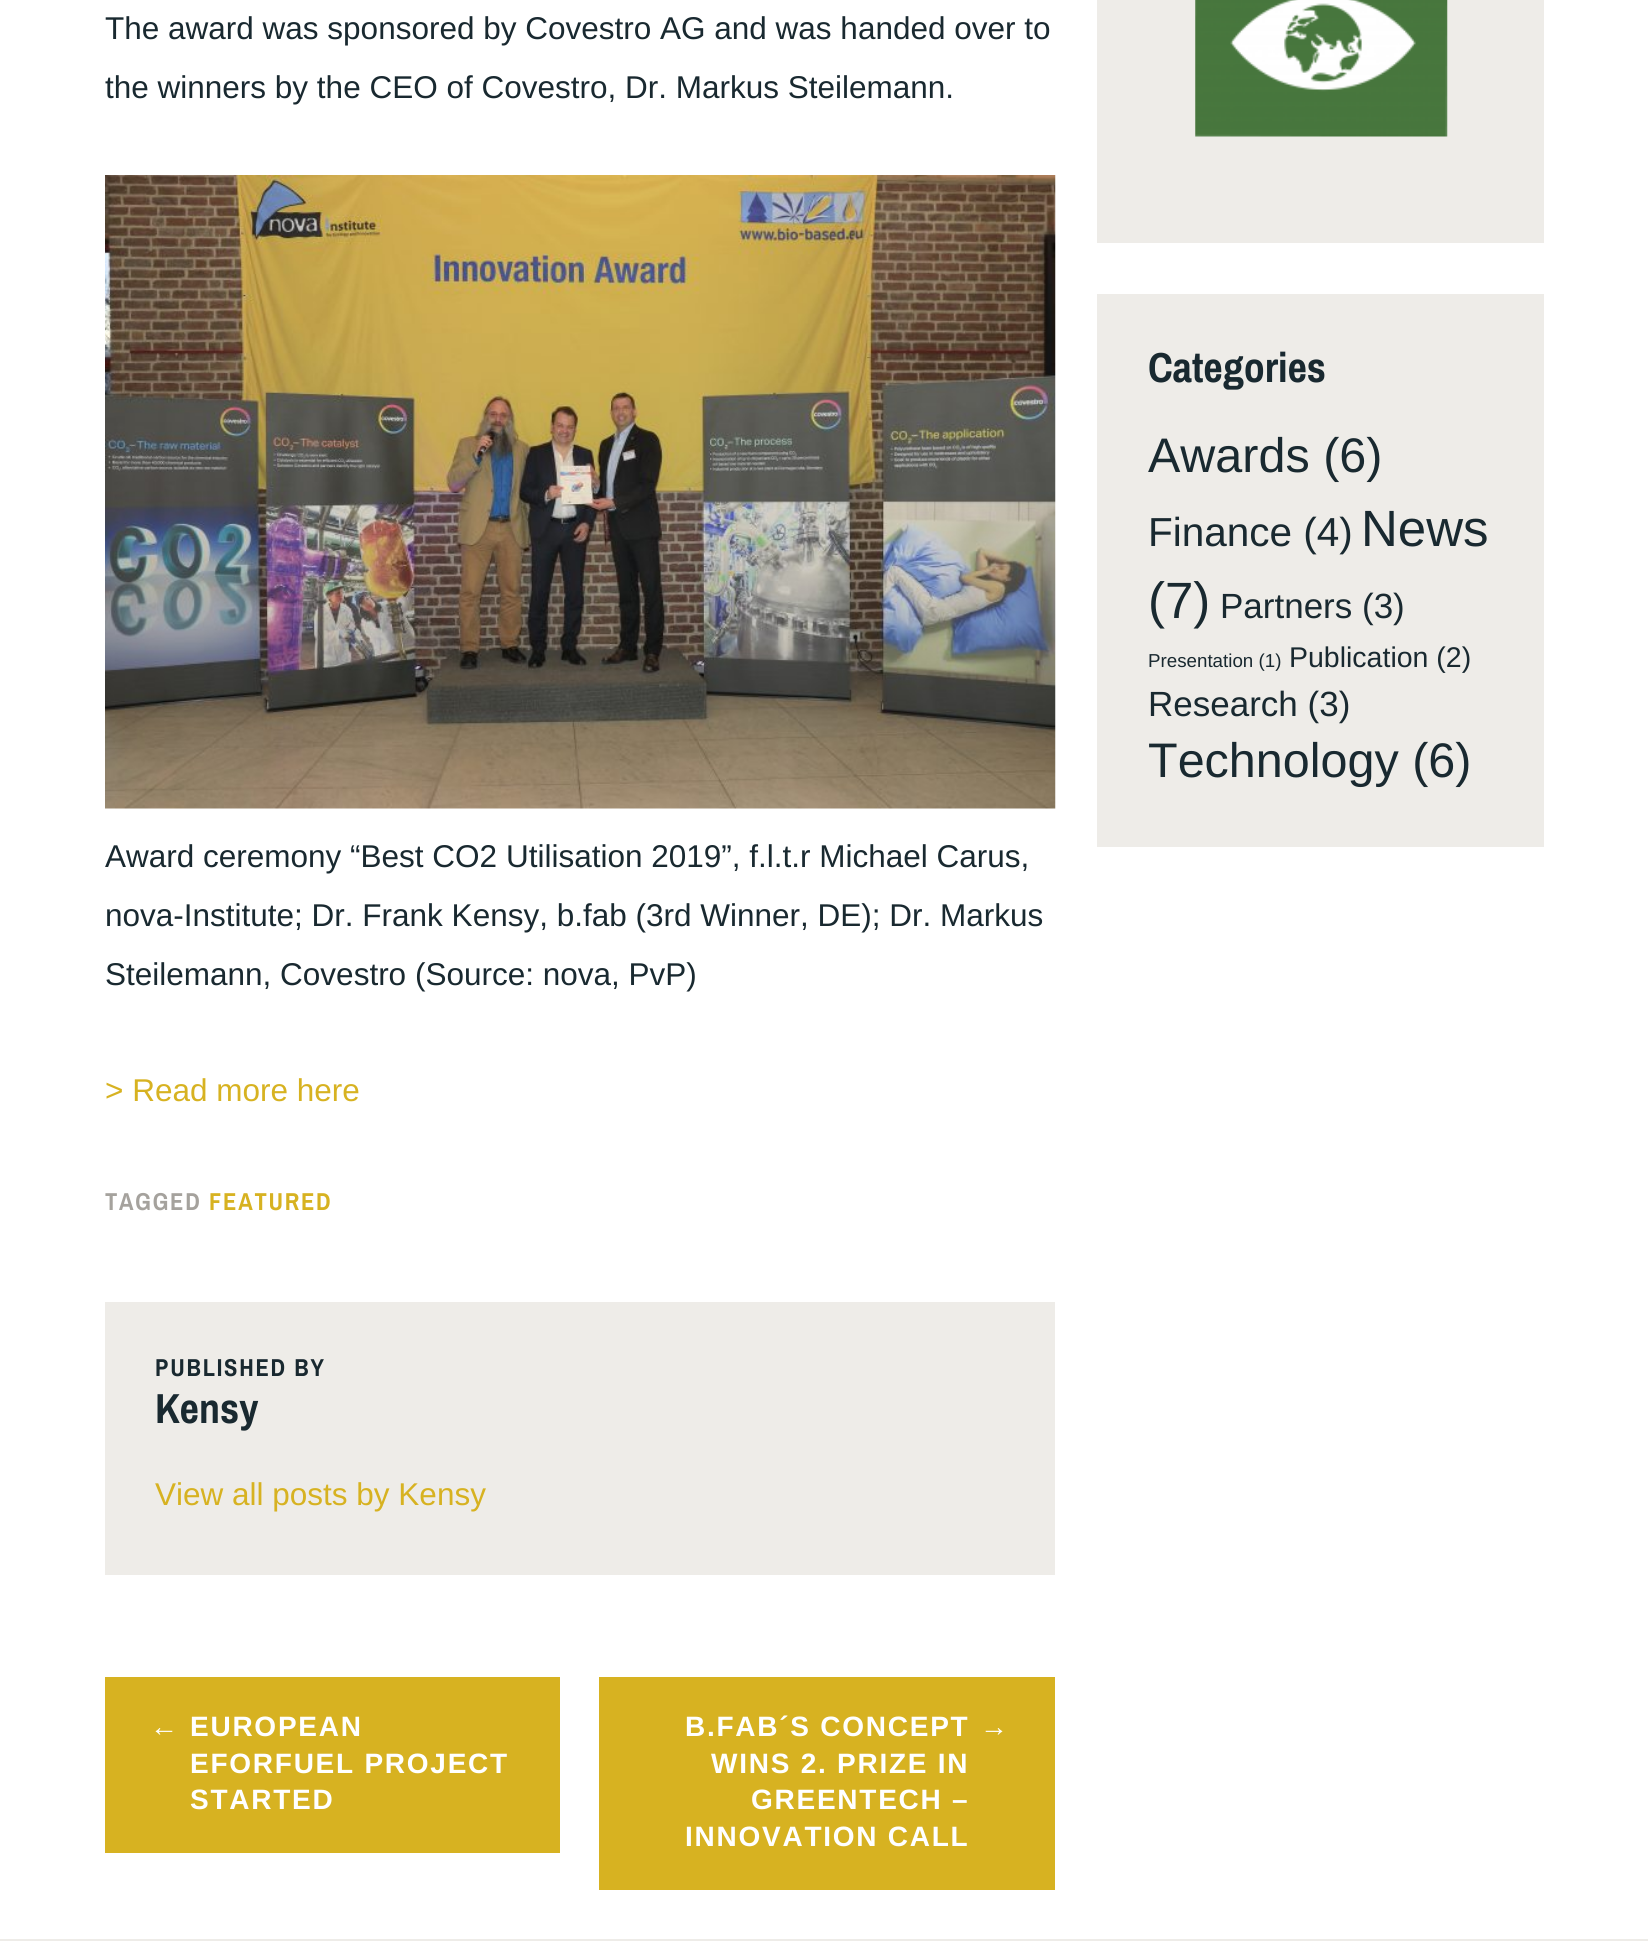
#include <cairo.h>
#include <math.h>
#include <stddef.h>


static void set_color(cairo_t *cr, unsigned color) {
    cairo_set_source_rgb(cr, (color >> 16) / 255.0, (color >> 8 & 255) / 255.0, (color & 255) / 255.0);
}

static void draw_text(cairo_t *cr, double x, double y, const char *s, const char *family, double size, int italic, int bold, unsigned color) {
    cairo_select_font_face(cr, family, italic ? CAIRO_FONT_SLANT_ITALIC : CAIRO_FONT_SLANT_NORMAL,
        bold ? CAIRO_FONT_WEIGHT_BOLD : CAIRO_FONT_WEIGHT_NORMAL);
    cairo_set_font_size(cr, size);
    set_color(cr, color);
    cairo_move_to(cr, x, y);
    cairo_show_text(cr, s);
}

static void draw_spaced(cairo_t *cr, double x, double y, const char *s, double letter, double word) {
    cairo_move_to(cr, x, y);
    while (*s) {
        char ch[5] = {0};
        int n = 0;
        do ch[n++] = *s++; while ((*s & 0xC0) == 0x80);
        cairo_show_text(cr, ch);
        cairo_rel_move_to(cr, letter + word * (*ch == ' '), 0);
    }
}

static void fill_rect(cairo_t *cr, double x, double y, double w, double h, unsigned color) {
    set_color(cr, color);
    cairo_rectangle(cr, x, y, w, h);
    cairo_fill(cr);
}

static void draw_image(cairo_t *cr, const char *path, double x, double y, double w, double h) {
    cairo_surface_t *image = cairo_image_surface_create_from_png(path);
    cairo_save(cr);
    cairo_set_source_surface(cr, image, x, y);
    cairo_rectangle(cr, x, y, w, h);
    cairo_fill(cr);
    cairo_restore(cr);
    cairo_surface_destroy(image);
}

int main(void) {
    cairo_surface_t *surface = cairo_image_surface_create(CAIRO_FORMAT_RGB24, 1648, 1960);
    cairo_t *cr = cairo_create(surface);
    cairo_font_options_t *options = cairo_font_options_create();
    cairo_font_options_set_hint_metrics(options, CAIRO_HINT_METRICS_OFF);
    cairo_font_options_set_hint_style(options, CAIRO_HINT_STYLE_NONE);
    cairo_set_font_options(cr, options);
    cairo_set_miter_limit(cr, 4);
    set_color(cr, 0xFFFFFF);
    cairo_paint(cr);
    draw_text(cr, 105, 39, "The award was sponsored by Covestro AG and was handed over to", "Liberation Sans", 31.5, 0, 0, 0x192930);
    draw_text(cr, 105, 98, "the winners by the CEO of Covestro, Dr. Markus Steilemann.", "Liberation Sans", 31.5, 0, 0, 0x192930);
    draw_image(cr, "assets/img1.png", 105, 175, 951, 634);
    draw_text(cr, 105, 867, "Award ceremony “Best CO2 Utilisation 2019”, f.l.t.r Michael Carus,", "Liberation Sans", 31.5, 0, 0, 0x192930);
    draw_text(cr, 105, 926, "nova-Institute; Dr. Frank Kensy, b.fab (3rd Winner, DE); Dr. Markus", "Liberation Sans", 31.5, 0, 0, 0x192930);
    draw_text(cr, 105, 985, "Steilemann, Covestro (Source: nova, PvP)", "Liberation Sans", 31.5, 0, 0, 0x192930);
    draw_text(cr, 105, 1101, "> Read more here", "Liberation Sans", 31.5, 0, 0, 0xD7B221);
    cairo_select_font_face(cr, "Archivo Narrow", CAIRO_FONT_SLANT_NORMAL, CAIRO_FONT_WEIGHT_BOLD);
    cairo_set_font_size(cr, 24.5);
    set_color(cr, 0xA5A29D);
    draw_spaced(cr, 105, 1210, "TAGGED", 1.75, 0);
    set_color(cr, 0xD7B221);
    draw_spaced(cr, 209, 1210, "FEATURED", 1.75, 0);
    fill_rect(cr, 105, 1302, 950, 273, 0xEEECE8);
    set_color(cr, 0x192930);
    draw_spaced(cr, 155, 1376, "PUBLISHED BY", 1.75, 0);
    draw_text(cr, 155, 1423, "Kensy", "Archivo Narrow", 42, 0, 1, 0x192930);
    draw_text(cr, 155, 1505, "View all posts by Kensy", "Liberation Sans", 31.5, 0, 0, 0xD7B221);
    fill_rect(cr, 105, 1677, 455, 176, 0xD7B221);
    cairo_select_font_face(cr, "Liberation Sans", CAIRO_FONT_SLANT_NORMAL, CAIRO_FONT_WEIGHT_BOLD);
    cairo_set_font_size(cr, 28);
    set_color(cr, 0xFFFFFF);
    draw_spaced(cr, 150, 1736, "←", 1.75, 0);
    draw_spaced(cr, 190, 1736, "EUROPEAN", 1.75, 0);
    draw_spaced(cr, 190, 1773, "EFORFUEL PROJECT", 1.75, 0);
    draw_spaced(cr, 190, 1809, "STARTED", 1.75, 0);
    fill_rect(cr, 599, 1677, 456, 213, 0xD7B221);
    set_color(cr, 0xFFFFFF);
    draw_spaced(cr, 685, 1736, "B.FAB´S CONCEPT", 1.75, 0);
    draw_spaced(cr, 980, 1736, "→", 1.75, 0);
    draw_spaced(cr, 711, 1773, "WINS 2. PRIZE IN", 1.75, 0);
    draw_spaced(cr, 751, 1809, "GREENTECH –", 1.75, 0);
    draw_spaced(cr, 685, 1846, "INNOVATION CALL", 1.75, 0);
    fill_rect(cr, 1097, 0, 447, 243, 0xEEECE8);
    draw_image(cr, "assets/img2.png", 1195, 0, 253, 137);
    fill_rect(cr, 1097, 294, 447, 553, 0xEEECE8);
    draw_text(cr, 1148, 382, "Categories", "Archivo Narrow", 42, 0, 1, 0x192930);
    draw_text(cr, 1148, 472, "Awards (6)", "Liberation Sans", 48.5, 0, 0, 0x192930);
    draw_text(cr, 1148, 546, "Finance (4)", "Liberation Sans", 40.5, 0, 0, 0x192930);
    draw_text(cr, 1361, 546, "News", "Liberation Sans", 51, 0, 0, 0x192930);
    draw_text(cr, 1148, 618, "(7)", "Liberation Sans", 51, 0, 0, 0x192930);
    draw_text(cr, 1220, 618, "Partners (3)", "Liberation Sans", 35, 0, 0, 0x192930);
    draw_text(cr, 1148, 667, "Presentation (1)", "Liberation Sans", 18.75, 0, 0, 0x192930);
    draw_text(cr, 1289, 667, "Publication (2)", "Liberation Sans", 28.5, 0, 0, 0x192930);
    draw_text(cr, 1148, 716, "Research (3)", "Liberation Sans", 35, 0, 0, 0x192930);
    draw_text(cr, 1148, 777, "Technology (6)", "Liberation Sans", 48.5, 0, 0, 0x192930);
    fill_rect(cr, 0, 1939, 1648, 2, 0xEEECE8);
    cairo_surface_write_to_png(surface, "output.png");
    cairo_font_options_destroy(options);
    cairo_destroy(cr);
    cairo_surface_destroy(surface);
    return 0;
}
